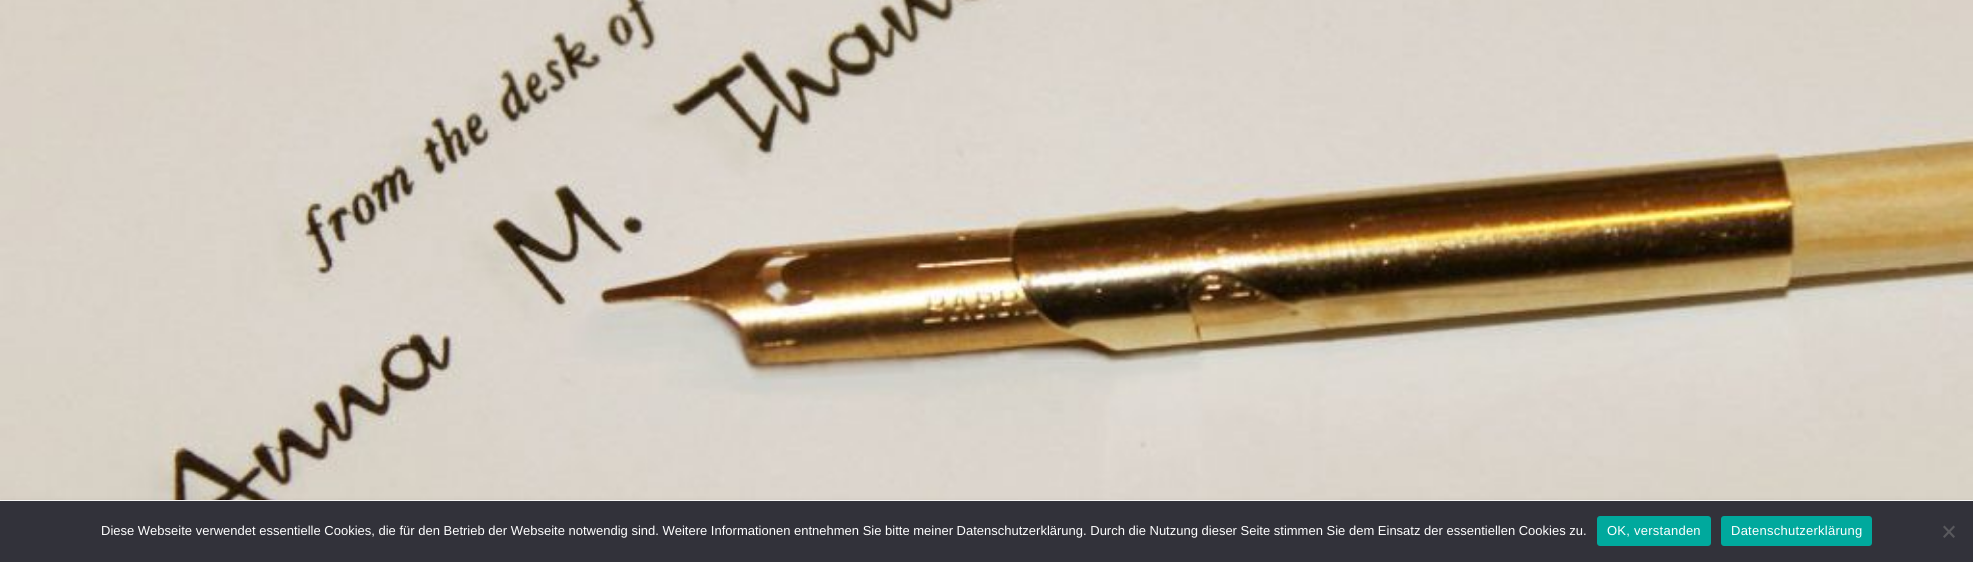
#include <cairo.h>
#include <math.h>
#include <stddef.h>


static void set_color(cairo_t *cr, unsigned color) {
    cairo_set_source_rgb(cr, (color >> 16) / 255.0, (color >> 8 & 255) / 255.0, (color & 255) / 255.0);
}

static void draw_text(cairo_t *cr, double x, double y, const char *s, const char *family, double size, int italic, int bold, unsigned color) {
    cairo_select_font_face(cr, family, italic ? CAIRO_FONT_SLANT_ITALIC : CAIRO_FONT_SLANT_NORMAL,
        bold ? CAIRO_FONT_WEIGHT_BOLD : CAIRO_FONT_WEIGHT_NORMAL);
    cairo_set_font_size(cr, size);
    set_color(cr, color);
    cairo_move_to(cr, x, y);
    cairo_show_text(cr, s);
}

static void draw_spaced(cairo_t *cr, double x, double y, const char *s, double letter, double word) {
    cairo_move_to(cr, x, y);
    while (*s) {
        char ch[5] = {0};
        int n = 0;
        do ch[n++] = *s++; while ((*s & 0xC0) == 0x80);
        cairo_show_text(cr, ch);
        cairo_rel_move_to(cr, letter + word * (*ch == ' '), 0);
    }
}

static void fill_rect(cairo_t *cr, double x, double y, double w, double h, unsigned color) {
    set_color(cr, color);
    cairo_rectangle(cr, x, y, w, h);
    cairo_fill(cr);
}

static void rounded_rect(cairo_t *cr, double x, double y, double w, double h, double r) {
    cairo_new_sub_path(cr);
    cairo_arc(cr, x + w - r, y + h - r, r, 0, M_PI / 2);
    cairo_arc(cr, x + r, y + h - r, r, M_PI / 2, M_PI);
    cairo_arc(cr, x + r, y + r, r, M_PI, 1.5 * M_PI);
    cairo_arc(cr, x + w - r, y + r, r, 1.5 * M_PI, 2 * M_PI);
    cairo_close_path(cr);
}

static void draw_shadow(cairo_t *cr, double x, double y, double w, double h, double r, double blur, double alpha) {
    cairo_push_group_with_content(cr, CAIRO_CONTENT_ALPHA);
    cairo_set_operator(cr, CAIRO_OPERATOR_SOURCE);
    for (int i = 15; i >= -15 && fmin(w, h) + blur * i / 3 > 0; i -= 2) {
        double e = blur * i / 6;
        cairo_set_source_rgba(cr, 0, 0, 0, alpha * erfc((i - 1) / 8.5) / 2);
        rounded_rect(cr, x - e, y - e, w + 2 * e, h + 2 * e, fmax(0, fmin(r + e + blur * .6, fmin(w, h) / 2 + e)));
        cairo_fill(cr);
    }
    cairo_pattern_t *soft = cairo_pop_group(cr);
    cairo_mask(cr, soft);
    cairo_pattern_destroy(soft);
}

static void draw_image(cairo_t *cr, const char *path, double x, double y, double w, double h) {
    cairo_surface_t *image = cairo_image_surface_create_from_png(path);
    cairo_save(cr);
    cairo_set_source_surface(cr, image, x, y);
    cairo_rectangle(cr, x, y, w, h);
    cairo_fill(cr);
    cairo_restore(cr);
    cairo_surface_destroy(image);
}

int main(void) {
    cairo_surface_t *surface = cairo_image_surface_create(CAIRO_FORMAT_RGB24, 1973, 562);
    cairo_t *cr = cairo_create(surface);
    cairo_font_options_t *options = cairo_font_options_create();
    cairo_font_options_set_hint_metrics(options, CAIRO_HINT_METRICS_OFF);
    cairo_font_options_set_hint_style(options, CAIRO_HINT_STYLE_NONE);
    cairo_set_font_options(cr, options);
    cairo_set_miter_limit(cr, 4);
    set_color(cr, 0xFFFFFF);
    cairo_paint(cr);
    draw_image(cr, "assets/img1.png", 0, 0, 1973, 500);
    set_color(cr, 0x000000);
    draw_shadow(cr, 0, 501, 1973, 60, 0, 2.5, 0.1);
    fill_rect(cr, 0, 501, 1973, 61, 0x32323A);
    draw_text(cr, 101, 535, "Diese Webseite verwendet essentielle Cookies, die für den Betrieb der Webseite notwendig sind. Weitere Informationen entnehmen Sie bitte meiner Datenschutzerklärung. Durch die Nutzung dieser Seite stimmen Sie dem Einsatz der essentiellen Cookies zu.", "Liberation Sans", 13, 0, 0, 0xFFFFFF);
    set_color(cr, 0x00A99D);
    rounded_rect(cr, 1597, 516, 114, 30, 3);
    cairo_fill(cr);
    set_color(cr, 0xFFFFFF);
    draw_spaced(cr, 1607, 535, "OK, verstanden", 0.25, 0);
    set_color(cr, 0x00A99D);
    rounded_rect(cr, 1721, 516, 151, 30, 3);
    cairo_fill(cr);
    set_color(cr, 0xFFFFFF);
    draw_spaced(cr, 1731, 535, "Datenschutzerklärung", 0.25, 0);
    set_color(cr, 0x59595D);
    cairo_new_path(cr);
    cairo_move_to(cr, 1953.5, 525.5);
    cairo_line_to(cr, 1955, 527);
    cairo_line_to(cr, 1944.5, 538);
    cairo_line_to(cr, 1943, 536.5);
    cairo_close_path(cr);
    cairo_fill(cr);
    cairo_new_path(cr);
    cairo_move_to(cr, 1943, 527);
    cairo_line_to(cr, 1944.5, 525.5);
    cairo_line_to(cr, 1955, 536.5);
    cairo_line_to(cr, 1953.5, 538);
    cairo_close_path(cr);
    cairo_fill(cr);
    cairo_surface_write_to_png(surface, "output.png");
    cairo_font_options_destroy(options);
    cairo_destroy(cr);
    cairo_surface_destroy(surface);
    return 0;
}
